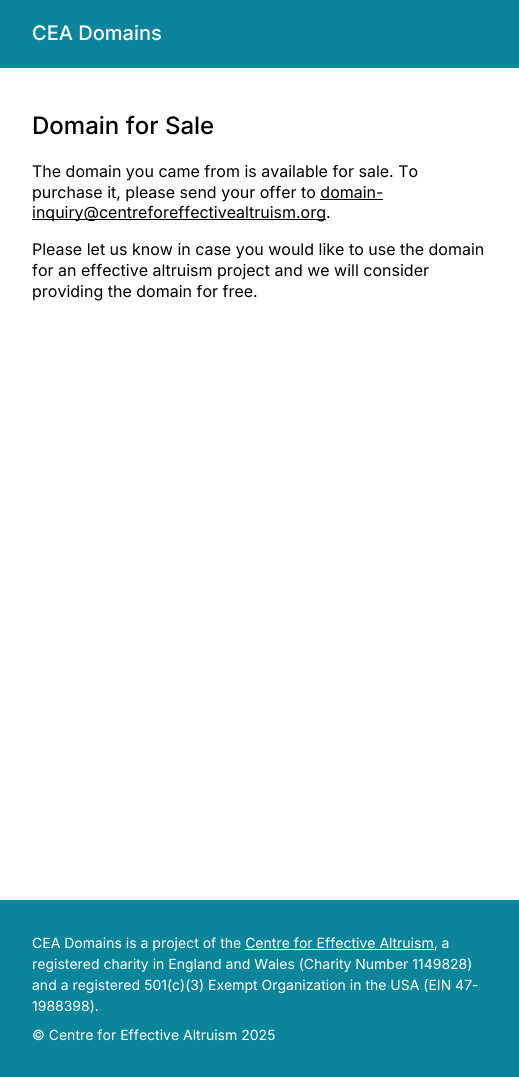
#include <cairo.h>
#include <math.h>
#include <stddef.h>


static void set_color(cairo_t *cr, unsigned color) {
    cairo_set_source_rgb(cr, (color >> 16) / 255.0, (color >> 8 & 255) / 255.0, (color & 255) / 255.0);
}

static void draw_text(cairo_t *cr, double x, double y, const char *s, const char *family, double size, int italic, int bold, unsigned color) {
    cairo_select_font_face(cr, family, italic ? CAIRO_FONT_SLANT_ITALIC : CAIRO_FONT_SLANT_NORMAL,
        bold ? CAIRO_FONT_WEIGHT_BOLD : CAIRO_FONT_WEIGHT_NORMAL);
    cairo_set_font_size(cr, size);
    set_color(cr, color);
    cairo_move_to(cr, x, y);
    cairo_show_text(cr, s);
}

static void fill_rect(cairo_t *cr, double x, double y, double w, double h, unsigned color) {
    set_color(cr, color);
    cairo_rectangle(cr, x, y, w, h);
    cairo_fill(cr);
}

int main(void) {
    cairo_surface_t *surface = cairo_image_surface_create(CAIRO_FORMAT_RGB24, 519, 1077);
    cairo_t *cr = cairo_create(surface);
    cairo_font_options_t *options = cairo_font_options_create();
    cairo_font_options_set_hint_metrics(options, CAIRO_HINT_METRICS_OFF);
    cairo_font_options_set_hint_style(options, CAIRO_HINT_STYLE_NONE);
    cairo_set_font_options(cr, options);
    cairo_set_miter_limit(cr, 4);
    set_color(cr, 0xFFFFFF);
    cairo_paint(cr);
    fill_rect(cr, 0, 0, 519, 68, 0x0C859A);
    draw_text(cr, 32, 40, "CEA Domains", "Inter Medium", 20, 0, 0, 0xFFFFFF);
    draw_text(cr, 32, 134, "Domain for Sale", "Inter Medium", 24, 0, 0, 0x000000);
    draw_text(cr, 32, 177, "The domain you came from is available for sale. To", "Inter", 16, 0, 0, 0x000000);
    draw_text(cr, 32, 198, "purchase it, please send your offer to domain-", "Inter", 16, 0, 0, 0x000000);
    fill_rect(cr, 32, 219, 294, 1, 0x000000);
    draw_text(cr, 32, 218, "inquiry@centreforeffectivealtruism.org.", "Inter", 16, 0, 0, 0x000000);
    fill_rect(cr, 320, 199, 63, 1, 0x000000);
    draw_text(cr, 32, 255, "Please let us know in case you would like to use the domain", "Inter", 16, 0, 0, 0x000000);
    draw_text(cr, 32, 276, "for an effective altruism project and we will consider", "Inter", 16, 0, 0, 0x000000);
    draw_text(cr, 32, 297, "providing the domain for free.", "Inter", 16, 0, 0, 0x000000);
    fill_rect(cr, 0, 900, 519, 177, 0x0C859A);
    draw_text(cr, 32, 948, "CEA Domains is a project of the Centre for Effective Altruism, a", "Inter", 14, 0, 0, 0xFFFFFF);
    fill_rect(cr, 245, 949, 189, 1, 0xFFFFFF);
    draw_text(cr, 32, 969, "registered charity in England and Wales (Charity Number 1149828)", "Inter", 14, 0, 0, 0xFFFFFF);
    draw_text(cr, 32, 990, "and a registered 501(c)(3) Exempt Organization in the USA (EIN 47-", "Inter", 14, 0, 0, 0xFFFFFF);
    draw_text(cr, 32, 1011, "1988398).", "Inter", 14, 0, 0, 0xFFFFFF);
    draw_text(cr, 32, 1040, "© Centre for Effective Altruism 2025", "Inter", 14, 0, 0, 0xFFFFFF);
    cairo_surface_write_to_png(surface, "output.png");
    cairo_font_options_destroy(options);
    cairo_destroy(cr);
    cairo_surface_destroy(surface);
    return 0;
}
